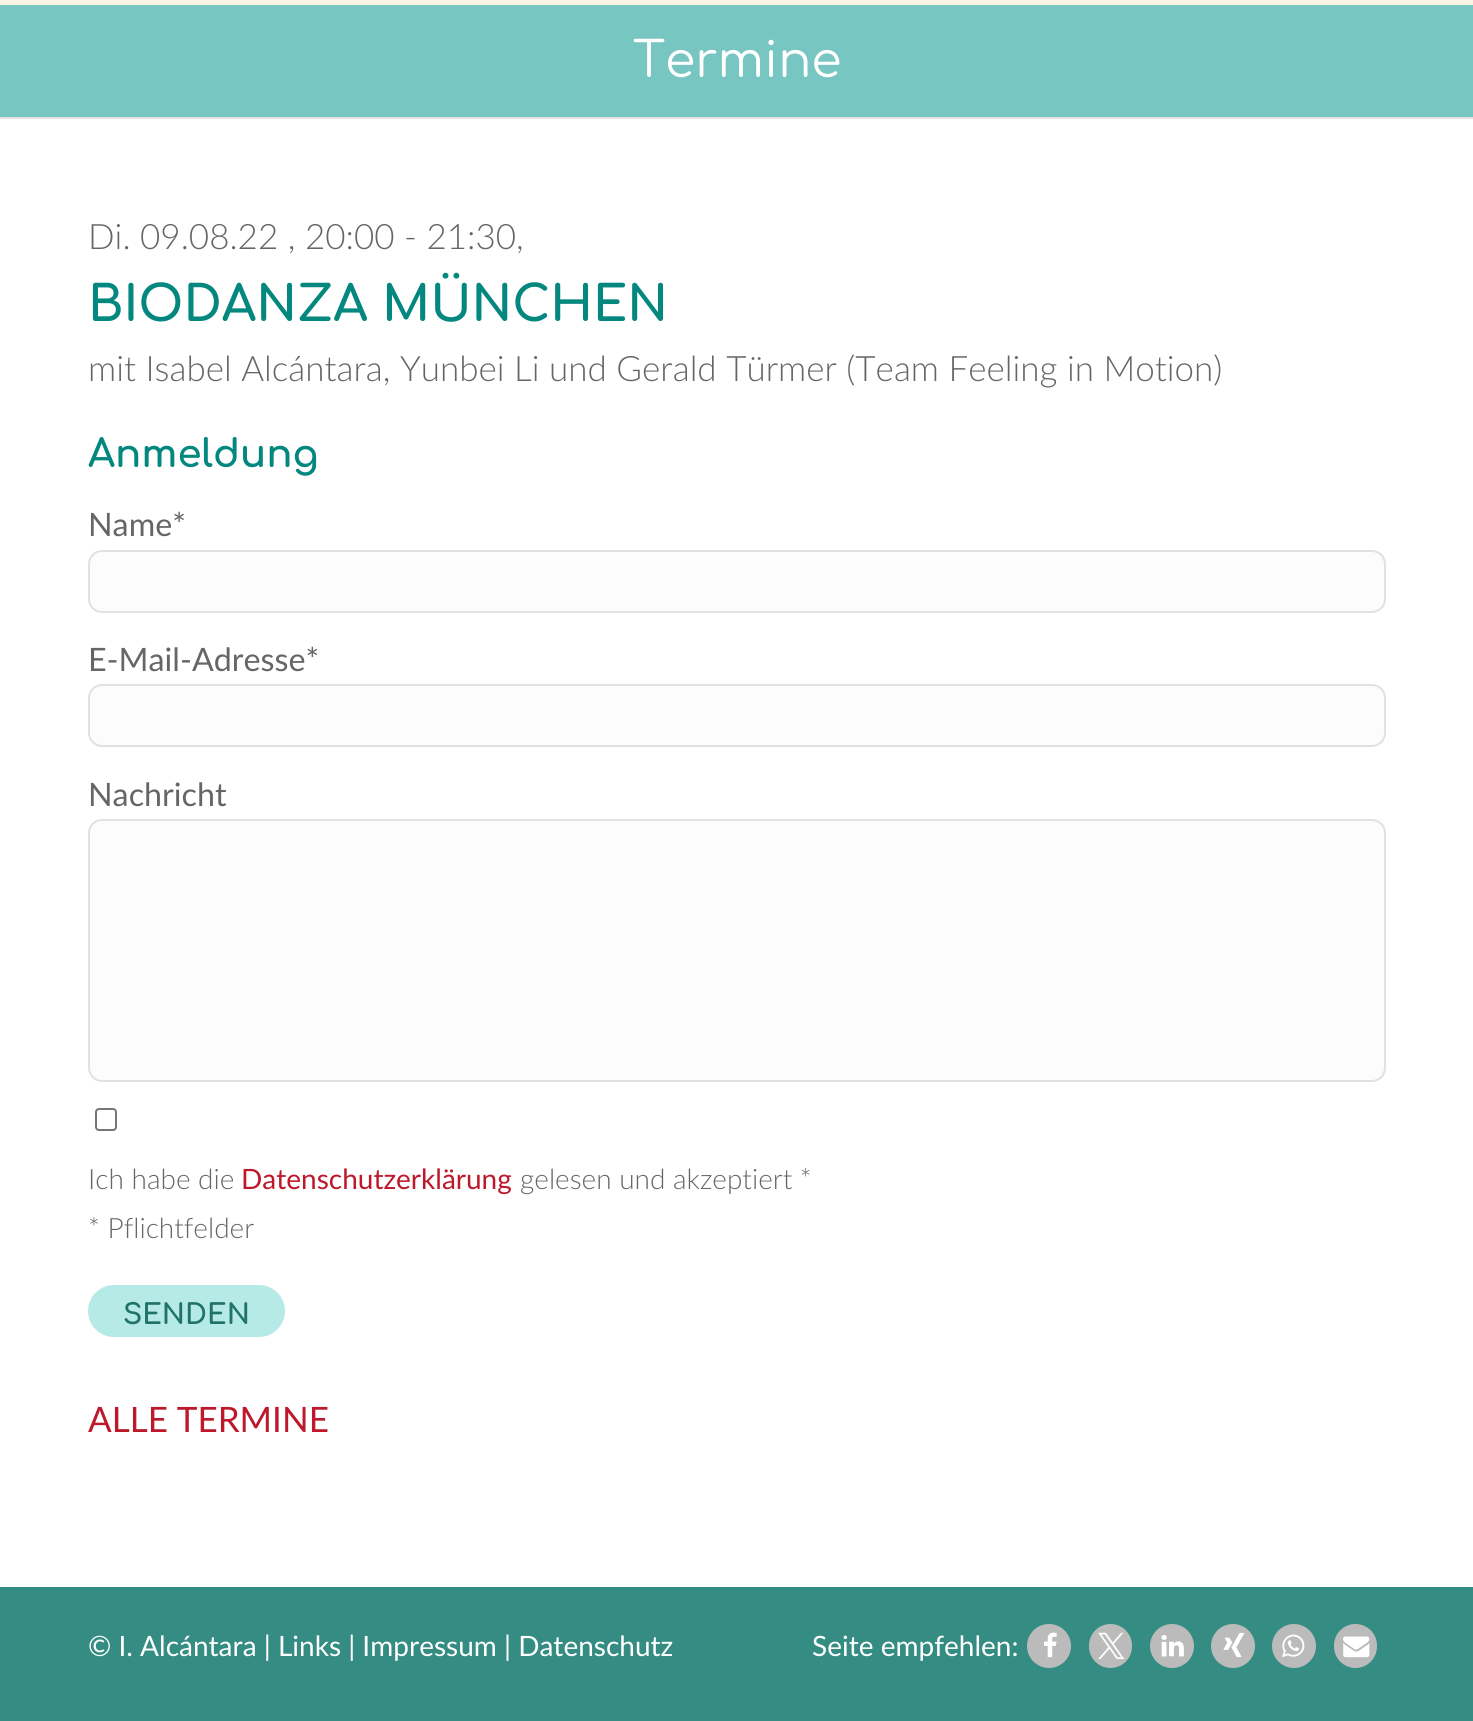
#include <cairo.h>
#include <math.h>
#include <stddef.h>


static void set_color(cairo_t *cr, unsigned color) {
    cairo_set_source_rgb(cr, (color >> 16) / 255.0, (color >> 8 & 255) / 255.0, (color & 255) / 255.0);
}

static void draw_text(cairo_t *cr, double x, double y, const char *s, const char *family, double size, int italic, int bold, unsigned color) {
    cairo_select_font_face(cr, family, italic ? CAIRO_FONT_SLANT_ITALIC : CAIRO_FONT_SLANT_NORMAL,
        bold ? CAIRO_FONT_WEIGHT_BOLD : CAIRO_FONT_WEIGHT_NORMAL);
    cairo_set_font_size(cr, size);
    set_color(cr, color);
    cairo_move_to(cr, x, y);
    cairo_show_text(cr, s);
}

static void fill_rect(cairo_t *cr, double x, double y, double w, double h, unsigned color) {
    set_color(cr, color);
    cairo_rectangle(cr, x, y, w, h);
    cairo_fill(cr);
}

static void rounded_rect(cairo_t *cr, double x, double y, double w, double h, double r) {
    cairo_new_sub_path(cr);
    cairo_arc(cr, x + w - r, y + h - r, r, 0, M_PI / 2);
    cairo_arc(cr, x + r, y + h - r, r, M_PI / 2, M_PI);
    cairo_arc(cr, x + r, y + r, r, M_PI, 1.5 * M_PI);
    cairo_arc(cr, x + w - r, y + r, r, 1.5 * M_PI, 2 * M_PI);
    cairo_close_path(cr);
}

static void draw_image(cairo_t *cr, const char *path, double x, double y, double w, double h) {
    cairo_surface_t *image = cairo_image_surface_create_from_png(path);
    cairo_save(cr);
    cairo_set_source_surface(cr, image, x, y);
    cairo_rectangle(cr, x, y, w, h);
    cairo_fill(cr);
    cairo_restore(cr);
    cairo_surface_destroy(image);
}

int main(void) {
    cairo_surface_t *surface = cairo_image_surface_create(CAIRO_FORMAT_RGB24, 1473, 1721);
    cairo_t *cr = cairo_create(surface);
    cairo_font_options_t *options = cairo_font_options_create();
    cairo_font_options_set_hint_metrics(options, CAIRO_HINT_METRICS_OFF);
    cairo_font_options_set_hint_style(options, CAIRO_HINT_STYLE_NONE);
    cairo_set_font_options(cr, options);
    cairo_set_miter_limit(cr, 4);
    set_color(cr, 0x78C6C1);
    cairo_paint(cr);
    fill_rect(cr, 0, 0, 1473, 5, 0xFCF4E2);
    draw_text(cr, 633, 77, "Termine", "Comfortaa", 49, 0, 0, 0xFFFFFF);
    fill_rect(cr, 0, 119, 1473, 1468, 0xFFFFFF);
    fill_rect(cr, 0, 117, 1473, 2, 0xE1E1E1);
    draw_text(cr, 88, 249, "Di. 09.08.22 , 20:00 - 21:30,", "Lato Light", 35, 0, 0, 0x666666);
    draw_text(cr, 88, 321, "BIODANZA MÜNCHEN", "Comfortaa", 49, 0, 1, 0x03877E);
    draw_text(cr, 88, 381, "mit Isabel Alcántara, Yunbei Li und Gerald Türmer (Team Feeling in Motion)", "Lato Light", 35, 0, 0, 0x666666);
    draw_text(cr, 88, 467, "Anmeldung", "Comfortaa", 38.5, 0, 1, 0x03877E);
    draw_text(cr, 88, 536, "Name*", "Lato", 32.25, 0, 0, 0x666666);
    set_color(cr, 0xFCFCFC);
    rounded_rect(cr, 89, 551, 1296, 61, 13);
    cairo_fill_preserve(cr);
    set_color(cr, 0xE1E1E1);
    cairo_stroke(cr);
    draw_text(cr, 88, 671, "E-Mail-Adresse*", "Lato", 32.25, 0, 0, 0x666666);
    set_color(cr, 0xFCFCFC);
    rounded_rect(cr, 89, 685, 1296, 61, 13);
    cairo_fill_preserve(cr);
    set_color(cr, 0xE1E1E1);
    cairo_stroke(cr);
    draw_text(cr, 88, 806, "Nachricht", "Lato", 32.25, 0, 0, 0x666666);
    set_color(cr, 0xFCFCFC);
    rounded_rect(cr, 89, 820, 1296, 261, 13);
    cairo_fill_preserve(cr);
    set_color(cr, 0xE1E1E1);
    cairo_stroke(cr);
    rounded_rect(cr, 96, 1109, 20, 21, 3);
    set_color(cr, 0x767676);
    cairo_stroke(cr);
    draw_text(cr, 88, 1189, "Ich habe die", "Lato Light", 28, 0, 0, 0x666666);
    draw_text(cr, 241, 1189, "Datenschutzerklärung", "Lato", 28, 0, 0, 0xBD182B);
    draw_text(cr, 520, 1189, "gelesen und akzeptiert *", "Lato Light", 28, 0, 0, 0x666666);
    draw_text(cr, 88, 1238, "* Pflichtfelder", "Lato Light", 28, 0, 0, 0x666666);
    set_color(cr, 0xB6EAE6);
    rounded_rect(cr, 88, 1285, 197, 52, 26);
    cairo_fill(cr);
    draw_text(cr, 123, 1324, "SENDEN", "Comfortaa", 28, 0, 1, 0x21736A);
    draw_text(cr, 88, 1432, "ALLE TERMINE", "Lato", 35, 0, 0, 0xBD182B);
    fill_rect(cr, 0, 1587, 1473, 134, 0x348C83);
    draw_text(cr, 88, 1656, "© I. Alcántara | Links | Impressum | Datenschutz", "Lato", 28, 0, 0, 0xFFFFFF);
    draw_text(cr, 812, 1656, "Seite empfehlen:", "Lato", 28, 0, 0, 0xFFFFFF);
    set_color(cr, 0xBBBBBB);
    cairo_new_path(cr);
    cairo_arc(cr, 1049, 1646, 22, 0, 2 * M_PI);
    cairo_fill(cr);
    draw_image(cr, "assets/img1.png", 1044, 1632, 13, 26);
    rounded_rect(cr, 1089, 1624, 43, 44, 21.5);
    cairo_fill(cr);
    draw_image(cr, "assets/img2.png", 1098, 1632, 27, 27);
    cairo_arc(cr, 1172, 1646, 22, 0, 2 * M_PI);
    cairo_fill(cr);
    draw_image(cr, "assets/img3.png", 1161, 1635, 23, 22);
    cairo_arc(cr, 1233, 1646, 22, 0, 2 * M_PI);
    cairo_fill(cr);
    draw_image(cr, "assets/img4.png", 1223, 1632, 22, 26);
    cairo_arc(cr, 1294, 1646, 22, 0, 2 * M_PI);
    cairo_fill(cr);
    draw_image(cr, "assets/img5.png", 1282, 1634, 23, 24);
    rounded_rect(cr, 1334, 1624, 43, 44, 21.5);
    cairo_fill(cr);
    draw_image(cr, "assets/img6.png", 1343, 1636, 27, 22);
    cairo_surface_write_to_png(surface, "output.png");
    cairo_font_options_destroy(options);
    cairo_destroy(cr);
    cairo_surface_destroy(surface);
    return 0;
}
